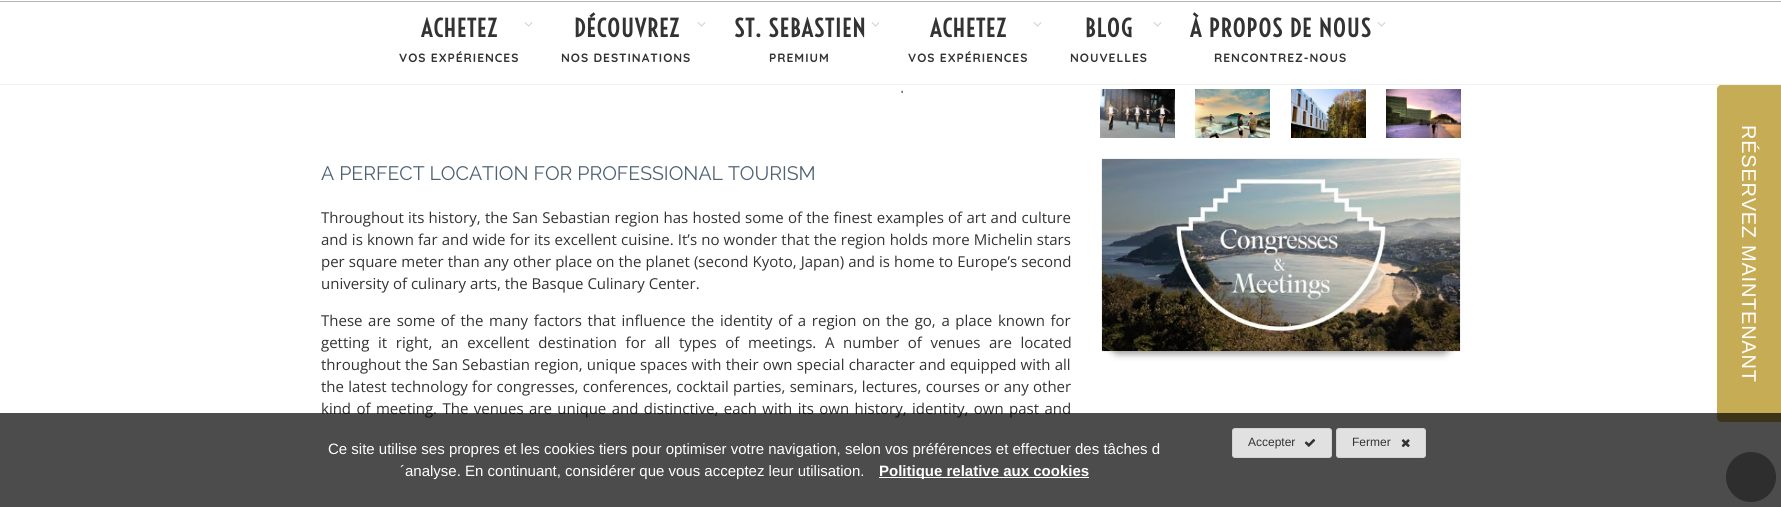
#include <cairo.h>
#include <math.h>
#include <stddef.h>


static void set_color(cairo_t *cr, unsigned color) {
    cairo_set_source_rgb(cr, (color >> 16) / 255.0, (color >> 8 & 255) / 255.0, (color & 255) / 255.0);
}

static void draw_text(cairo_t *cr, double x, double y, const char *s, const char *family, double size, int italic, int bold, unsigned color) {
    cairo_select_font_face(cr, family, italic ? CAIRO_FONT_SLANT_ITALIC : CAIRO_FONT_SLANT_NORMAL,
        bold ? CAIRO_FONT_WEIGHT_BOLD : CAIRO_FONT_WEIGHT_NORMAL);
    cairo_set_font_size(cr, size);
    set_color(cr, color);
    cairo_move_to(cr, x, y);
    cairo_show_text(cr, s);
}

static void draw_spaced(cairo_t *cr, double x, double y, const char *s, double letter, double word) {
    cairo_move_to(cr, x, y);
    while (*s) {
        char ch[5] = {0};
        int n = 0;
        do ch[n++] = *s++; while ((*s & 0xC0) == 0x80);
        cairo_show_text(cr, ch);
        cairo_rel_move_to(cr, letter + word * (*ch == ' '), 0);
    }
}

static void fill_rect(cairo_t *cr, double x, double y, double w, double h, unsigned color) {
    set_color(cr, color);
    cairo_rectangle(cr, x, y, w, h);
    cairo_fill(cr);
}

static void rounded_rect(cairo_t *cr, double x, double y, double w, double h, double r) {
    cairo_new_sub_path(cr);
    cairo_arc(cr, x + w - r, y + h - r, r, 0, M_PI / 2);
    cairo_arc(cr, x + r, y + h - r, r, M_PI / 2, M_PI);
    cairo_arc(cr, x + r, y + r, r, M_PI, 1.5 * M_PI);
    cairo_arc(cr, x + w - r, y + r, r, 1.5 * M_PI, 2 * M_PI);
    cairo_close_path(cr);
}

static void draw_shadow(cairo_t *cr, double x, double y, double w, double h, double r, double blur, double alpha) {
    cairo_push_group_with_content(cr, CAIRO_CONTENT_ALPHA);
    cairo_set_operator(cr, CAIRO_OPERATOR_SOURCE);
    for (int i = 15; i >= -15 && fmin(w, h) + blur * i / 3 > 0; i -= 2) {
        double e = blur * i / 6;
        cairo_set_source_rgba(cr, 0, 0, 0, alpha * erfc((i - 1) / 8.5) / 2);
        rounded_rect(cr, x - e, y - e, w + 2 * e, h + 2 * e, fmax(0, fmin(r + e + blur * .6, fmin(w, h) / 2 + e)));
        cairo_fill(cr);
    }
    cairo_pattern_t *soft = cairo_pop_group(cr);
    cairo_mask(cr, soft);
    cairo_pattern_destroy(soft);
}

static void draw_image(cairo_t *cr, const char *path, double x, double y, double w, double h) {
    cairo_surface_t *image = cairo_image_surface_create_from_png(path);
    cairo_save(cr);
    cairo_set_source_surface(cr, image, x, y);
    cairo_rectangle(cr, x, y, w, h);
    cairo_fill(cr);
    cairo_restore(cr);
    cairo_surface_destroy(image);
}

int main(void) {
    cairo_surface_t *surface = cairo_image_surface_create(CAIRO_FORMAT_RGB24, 1781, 507);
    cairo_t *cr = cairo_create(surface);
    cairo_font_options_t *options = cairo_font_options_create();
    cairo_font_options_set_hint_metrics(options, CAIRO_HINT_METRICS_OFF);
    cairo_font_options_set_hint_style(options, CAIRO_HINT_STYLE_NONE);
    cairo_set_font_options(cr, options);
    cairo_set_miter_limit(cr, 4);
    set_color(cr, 0xFFFFFF);
    cairo_paint(cr);
    fill_rect(cr, 0, 84, 1781, 1, 0xF1F1F1);
    fill_rect(cr, 0, 1, 1781, 1, 0xB2B2B2);
    cairo_select_font_face(cr, "Voltaire", CAIRO_FONT_SLANT_NORMAL, CAIRO_FONT_WEIGHT_BOLD);
    cairo_set_font_size(cr, 24);
    set_color(cr, 0x333333);
    draw_spaced(cr, 421, 37, "ACHETEZ", 1, 0);
    draw_image(cr, "assets/img1.png", 524, 22, 9, 5);
    cairo_select_font_face(cr, "Quicksand", CAIRO_FONT_SLANT_NORMAL, CAIRO_FONT_WEIGHT_BOLD);
    cairo_set_font_size(cr, 12);
    draw_spaced(cr, 399, 62, "VOS EXPÉRIENCES", 1, 0);
    cairo_select_font_face(cr, "Voltaire", CAIRO_FONT_SLANT_NORMAL, CAIRO_FONT_WEIGHT_BOLD);
    cairo_set_font_size(cr, 24);
    draw_spaced(cr, 574, 37, "DÉCOUVREZ", 1, 0);
    draw_image(cr, "assets/img1.png", 697, 22, 9, 5);
    cairo_select_font_face(cr, "Quicksand", CAIRO_FONT_SLANT_NORMAL, CAIRO_FONT_WEIGHT_BOLD);
    cairo_set_font_size(cr, 12);
    draw_spaced(cr, 561, 62, "NOS DESTINATIONS", 1, 0);
    cairo_select_font_face(cr, "Voltaire", CAIRO_FONT_SLANT_NORMAL, CAIRO_FONT_WEIGHT_BOLD);
    cairo_set_font_size(cr, 24);
    draw_spaced(cr, 734, 37, "ST. SEBASTIEN", 1, 0);
    draw_image(cr, "assets/img1.png", 871, 22, 9, 5);
    cairo_select_font_face(cr, "Quicksand", CAIRO_FONT_SLANT_NORMAL, CAIRO_FONT_WEIGHT_BOLD);
    cairo_set_font_size(cr, 12);
    draw_spaced(cr, 769, 62, "PREMIUM", 1, 0);
    cairo_select_font_face(cr, "Voltaire", CAIRO_FONT_SLANT_NORMAL, CAIRO_FONT_WEIGHT_BOLD);
    cairo_set_font_size(cr, 24);
    draw_spaced(cr, 930, 37, "ACHETEZ", 1, 0);
    draw_image(cr, "assets/img1.png", 1033, 22, 9, 5);
    cairo_select_font_face(cr, "Quicksand", CAIRO_FONT_SLANT_NORMAL, CAIRO_FONT_WEIGHT_BOLD);
    cairo_set_font_size(cr, 12);
    draw_spaced(cr, 908, 62, "VOS EXPÉRIENCES", 1, 0);
    cairo_select_font_face(cr, "Voltaire", CAIRO_FONT_SLANT_NORMAL, CAIRO_FONT_WEIGHT_BOLD);
    cairo_set_font_size(cr, 24);
    draw_spaced(cr, 1085, 37, "BLOG", 1, 0);
    draw_image(cr, "assets/img1.png", 1153, 22, 9, 5);
    cairo_select_font_face(cr, "Quicksand", CAIRO_FONT_SLANT_NORMAL, CAIRO_FONT_WEIGHT_BOLD);
    cairo_set_font_size(cr, 12);
    draw_spaced(cr, 1070, 62, "NOUVELLES", 1, 0);
    cairo_select_font_face(cr, "Voltaire", CAIRO_FONT_SLANT_NORMAL, CAIRO_FONT_WEIGHT_BOLD);
    cairo_set_font_size(cr, 24);
    draw_spaced(cr, 1190, 37, "À PROPOS DE NOUS", 1, 0);
    draw_image(cr, "assets/img1.png", 1377, 22, 9, 5);
    cairo_select_font_face(cr, "Quicksand", CAIRO_FONT_SLANT_NORMAL, CAIRO_FONT_WEIGHT_BOLD);
    cairo_set_font_size(cr, 12);
    draw_spaced(cr, 1214, 62, "RENCONTREZ-NOUS", 1, 0);
    draw_text(cr, 900, 93, ".", "Raleway", 23, 0, 0, 0x4F6273);
    draw_text(cr, 321, 180, "A PERFECT LOCATION FOR PROFESSIONAL TOURISM", "Raleway", 19.5, 0, 0, 0x4F6273);
    cairo_select_font_face(cr, "Open Sans", CAIRO_FONT_SLANT_NORMAL, CAIRO_FONT_WEIGHT_NORMAL);
    cairo_set_font_size(cr, 15);
    set_color(cr, 0x333333);
    draw_spaced(cr, 321, 223, "Throughout its history, the San Sebastian region has hosted some of the finest examples of art and culture", 0, 0.4);
    draw_spaced(cr, 321, 245, "and is known far and wide for its excellent cuisine. It’s no wonder that the region holds more Michelin stars", 0, 0.25);
    draw_spaced(cr, 321, 267, "per square meter than any other place on the planet (second Kyoto, Japan) and is home to Europe’s second", 0, 0.2);
    draw_text(cr, 321, 289, "university of culinary arts, the Basque Culinary Center.", "Open Sans", 15, 0, 0, 0x333333);
    draw_spaced(cr, 321, 326, "These are some of the many factors that influence the identity of a region on the go, a place known for", 0, 1.75);
    draw_spaced(cr, 321, 348, "getting it right, an excellent destination for all types of meetings. A number of venues are located", 0, 4.75);
    draw_spaced(cr, 321, 370, "throughout the San Sebastian region, unique spaces with their own special character and equipped with all", 0, 0.25);
    draw_spaced(cr, 321, 392, "the latest technology for congresses, conferences, cocktail parties, seminars, lectures, courses or any other", 0, 0.4);
    draw_spaced(cr, 321, 414, "kind of meeting. The venues are unique and distinctive, each with its own history, identity, own past and", 0, 1.5);
    draw_image(cr, "assets/img2.png", 1100, 89, 75, 49);
    draw_image(cr, "assets/img3.png", 1195, 89, 75, 49);
    draw_image(cr, "assets/img4.png", 1291, 89, 75, 49);
    draw_image(cr, "assets/img5.png", 1386, 89, 75, 49);
    rounded_rect(cr, 1101.5, 158.5, 359, 193, 2.5);
    set_color(cr, 0xF1F1F1);
    cairo_set_line_width(cr, 1);
    cairo_stroke(cr);
    set_color(cr, 0x999999);
    draw_shadow(cr, 1109, 258, 343, 96, 10, 3.5, 1);
    draw_image(cr, "assets/img6.png", 1102, 159, 358, 192);
    set_color(cr, 0xC7AC56);
    cairo_new_path(cr);
    cairo_move_to(cr, 1781, 85);
    cairo_line_to(cr, 1781, 422);
    cairo_line_to(cr, 1721, 422);
    cairo_curve_to(cr, 1719, 422, 1717, 420, 1717, 418);
    cairo_line_to(cr, 1717, 89);
    cairo_curve_to(cr, 1717, 87, 1719, 85, 1721, 85);
    cairo_close_path(cr);
    cairo_fill(cr);
    cairo_select_font_face(cr, "Liberation Sans", CAIRO_FONT_SLANT_NORMAL, CAIRO_FONT_WEIGHT_NORMAL);
    cairo_set_font_size(cr, 20);
    set_color(cr, 0xFFFFFF);
    cairo_save(cr);
    cairo_translate(cr, 1742, 125);
    cairo_rotate(cr, 90 * M_PI / 180);
    draw_spaced(cr, 0, 0, "RÉSERVEZ MAINTENANT", 0.75, 0);
    cairo_restore(cr);
    set_color(cr, 0x999999);
    cairo_new_path(cr);
    cairo_arc(cr, 1751, 477, 25, 0, 2 * M_PI);
    cairo_fill(cr);
    cairo_set_source_rgba(cr, 0, 0, 0, 0.7);
    cairo_rectangle(cr, 0, 413, 1781, 94);
    cairo_fill(cr);
    draw_text(cr, 328, 454, "Ce site utilise ses propres et les cookies tiers pour optimiser votre navigation, selon vos préférences et effectuer des tâches d", "Liberation Sans", 15, 0, 0, 0xFFFFFF);
    draw_text(cr, 400, 476, "´analyse. En continuant, considérer que vous acceptez leur utilisation.", "Liberation Sans", 15, 0, 0, 0xFFFFFF);
    fill_rect(cr, 879, 477, 210, 1, 0xFFFFFF);
    draw_text(cr, 879, 476, "Politique relative aux cookies", "Liberation Sans", 15, 0, 1, 0xFFFFFF);
    set_color(cr, 0xE1E1E1);
    rounded_rect(cr, 1232.5, 428.5, 99, 29, 2.5);
    cairo_fill_preserve(cr);
    set_color(cr, 0xD3D3D3);
    cairo_stroke(cr);
    draw_text(cr, 1248, 446, "Accepter", "Liberation Sans", 12, 0, 0, 0x333333);
    draw_image(cr, "assets/img7.png", 1304, 439, 12, 8);
    set_color(cr, 0xE1E1E1);
    rounded_rect(cr, 1336.5, 428.5, 89, 29, 2.5);
    cairo_fill_preserve(cr);
    set_color(cr, 0xD3D3D3);
    cairo_stroke(cr);
    draw_text(cr, 1352, 446, "Fermer", "Liberation Sans", 12, 0, 0, 0x333333);
    draw_image(cr, "assets/img8.png", 1401, 439, 9, 9);
    cairo_surface_write_to_png(surface, "output.png");
    cairo_font_options_destroy(options);
    cairo_destroy(cr);
    cairo_surface_destroy(surface);
    return 0;
}
